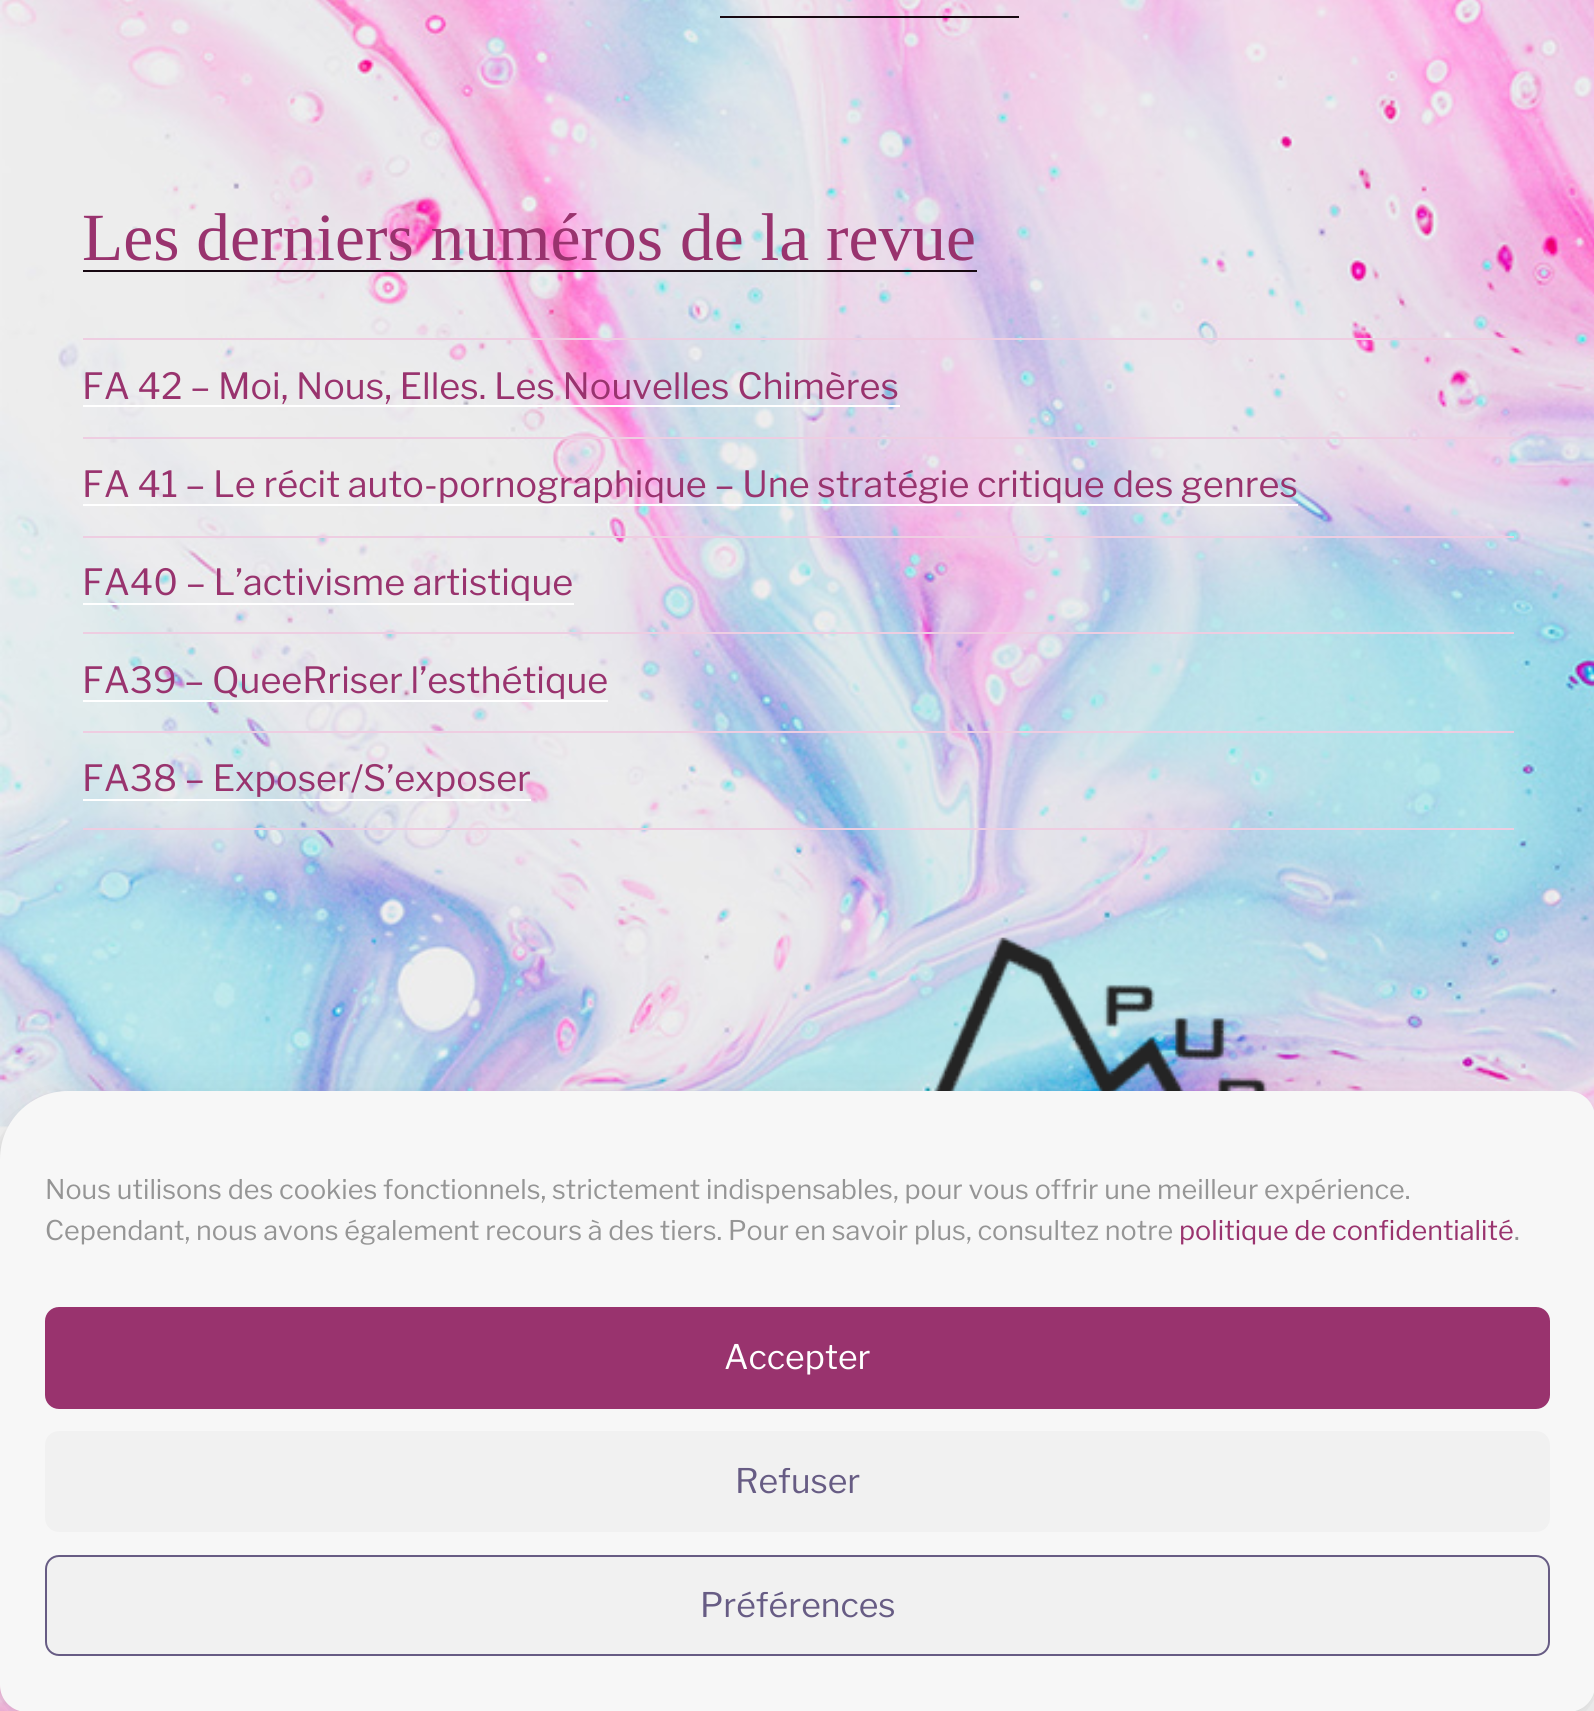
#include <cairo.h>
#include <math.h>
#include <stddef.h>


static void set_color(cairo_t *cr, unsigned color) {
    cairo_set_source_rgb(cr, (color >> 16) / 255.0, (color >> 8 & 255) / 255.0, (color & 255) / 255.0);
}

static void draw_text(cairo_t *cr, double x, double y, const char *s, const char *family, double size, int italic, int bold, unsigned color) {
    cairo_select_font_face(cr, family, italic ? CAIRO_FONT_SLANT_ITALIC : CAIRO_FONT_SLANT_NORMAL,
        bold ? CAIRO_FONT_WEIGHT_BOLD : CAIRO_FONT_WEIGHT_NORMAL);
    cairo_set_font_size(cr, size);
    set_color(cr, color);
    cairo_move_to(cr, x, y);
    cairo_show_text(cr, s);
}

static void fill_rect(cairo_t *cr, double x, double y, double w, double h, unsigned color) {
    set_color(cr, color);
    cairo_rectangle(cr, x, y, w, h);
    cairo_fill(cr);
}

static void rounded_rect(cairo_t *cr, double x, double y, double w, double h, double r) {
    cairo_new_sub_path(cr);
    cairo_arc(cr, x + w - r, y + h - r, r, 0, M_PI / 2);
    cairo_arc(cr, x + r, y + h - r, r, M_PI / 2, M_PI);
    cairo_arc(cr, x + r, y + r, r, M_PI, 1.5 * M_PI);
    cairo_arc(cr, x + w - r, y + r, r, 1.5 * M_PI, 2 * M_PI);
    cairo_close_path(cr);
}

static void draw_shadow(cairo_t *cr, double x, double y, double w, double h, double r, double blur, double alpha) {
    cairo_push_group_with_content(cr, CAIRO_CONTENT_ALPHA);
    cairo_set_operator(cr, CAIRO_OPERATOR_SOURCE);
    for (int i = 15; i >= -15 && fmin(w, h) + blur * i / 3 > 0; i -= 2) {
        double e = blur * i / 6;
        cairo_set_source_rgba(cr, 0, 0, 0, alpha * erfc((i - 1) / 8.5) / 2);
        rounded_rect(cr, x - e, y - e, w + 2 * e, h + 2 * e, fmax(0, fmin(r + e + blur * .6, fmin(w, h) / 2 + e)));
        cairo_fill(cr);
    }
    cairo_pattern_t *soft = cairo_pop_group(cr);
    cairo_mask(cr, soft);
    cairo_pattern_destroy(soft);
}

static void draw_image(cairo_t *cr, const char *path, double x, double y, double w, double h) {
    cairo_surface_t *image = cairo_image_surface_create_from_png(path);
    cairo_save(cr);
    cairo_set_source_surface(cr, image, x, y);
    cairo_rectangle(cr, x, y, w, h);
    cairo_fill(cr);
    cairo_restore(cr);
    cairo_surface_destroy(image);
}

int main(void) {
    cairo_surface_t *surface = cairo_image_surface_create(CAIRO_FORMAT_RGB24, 1594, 1711);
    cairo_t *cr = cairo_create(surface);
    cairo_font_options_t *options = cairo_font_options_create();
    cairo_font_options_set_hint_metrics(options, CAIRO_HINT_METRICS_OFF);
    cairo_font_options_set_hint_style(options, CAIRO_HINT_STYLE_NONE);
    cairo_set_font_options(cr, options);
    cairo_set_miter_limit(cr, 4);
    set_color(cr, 0xFFFFFF);
    cairo_paint(cr);
    draw_image(cr, "assets/img1.png", 0, 0, 1594, 1711);
    fill_rect(cr, 720, 16, 299, 2, 0x170811);
    draw_text(cr, 82, 260, "Les derniers numéros de la revue", "Liberation Serif", 67.5, 0, 0, 0x99336E);
    fill_rect(cr, 83, 270, 894, 2, 0x170811);
    fill_rect(cr, 83, 338, 1431, 2, 0xEECDE1);
    fill_rect(cr, 83, 437, 1431, 2, 0xEECDE1);
    draw_text(cr, 82, 399, "FA 42 – Moi, Nous, Elles. Les Nouvelles Chimères", "Libre Franklin Thin", 36, 0, 0, 0x99336E);
    fill_rect(cr, 83, 405, 817, 2, 0xFFFFFF);
    fill_rect(cr, 83, 536, 1431, 2, 0xEECDE1);
    draw_text(cr, 82, 497, "FA 41 – Le récit auto-pornographique – Une stratégie critique des genres", "Libre Franklin Thin", 36, 0, 0, 0x99336E);
    fill_rect(cr, 83, 504, 1215, 2, 0xFFFFFF);
    fill_rect(cr, 83, 632, 1431, 2, 0xEECDE1);
    draw_text(cr, 82, 595, "FA40 – L’activisme artistique", "Libre Franklin Thin", 36, 0, 0, 0x99336E);
    fill_rect(cr, 83, 603, 491, 2, 0xFFFFFF);
    fill_rect(cr, 83, 731, 1431, 2, 0xEECDE1);
    draw_text(cr, 82, 693, "FA39 – QueeRriser l’esthétique", "Libre Franklin Thin", 36, 0, 0, 0x99336E);
    fill_rect(cr, 83, 700, 525, 2, 0xFFFFFF);
    fill_rect(cr, 83, 828, 1431, 2, 0xEECDE1);
    draw_text(cr, 82, 791, "FA38 – Exposer/S’exposer", "Libre Franklin Thin", 36, 0, 0, 0x99336E);
    fill_rect(cr, 83, 799, 448, 2, 0xFFFFFF);
    draw_image(cr, "assets/img2.png", 934, 937, 333, 154);
    set_color(cr, 0x000000);
    draw_shadow(cr, 0, 1105, 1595, 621, 68, 7, 0.23);
    draw_shadow(cr, 0, 1114, 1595, 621, 68, 22.5, 0.19);
    set_color(cr, 0xF7F7F7);
    cairo_new_path(cr);
    cairo_move_to(cr, 68, 1091);
    cairo_line_to(cr, 1568, 1091);
    cairo_curve_to(cr, 1583, 1091, 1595, 1103, 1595, 1118);
    cairo_line_to(cr, 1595, 1685);
    cairo_curve_to(cr, 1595, 1700, 1583, 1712, 1568, 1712);
    cairo_line_to(cr, 27, 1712);
    cairo_curve_to(cr, 12, 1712, 0, 1700, 0, 1685);
    cairo_line_to(cr, 0, 1159);
    cairo_curve_to(cr, 0, 1121.5, 30.5, 1091, 68, 1091);
    cairo_close_path(cr);
    cairo_fill(cr);
    draw_text(cr, 45, 1199, "Nous utilisons des cookies fonctionnels, strictement indispensables, pour vous offrir une meilleur expérience.", "Libre Franklin Thin", 27, 0, 0, 0x959595);
    draw_text(cr, 45, 1240, "Cependant, nous avons également recours à des tiers. Pour en savoir plus, consultez notre", "Libre Franklin Thin", 27, 0, 0, 0x959595);
    draw_text(cr, 1179, 1240, "politique de confidentialité", "Libre Franklin Thin", 27, 0, 0, 0x99336E);
    draw_text(cr, 1514, 1240, ".", "Libre Franklin Thin", 27, 0, 0, 0x959595);
    set_color(cr, 0x99336E);
    rounded_rect(cr, 46, 1308, 1503, 100, 13);
    cairo_fill_preserve(cr);
    cairo_stroke(cr);
    draw_text(cr, 724, 1369, "Accepter", "Libre Franklin Thin", 33.75, 0, 0, 0xFFFFFF);
    set_color(cr, 0xF1F1F1);
    rounded_rect(cr, 45, 1431, 1505, 101, 14);
    cairo_fill(cr);
    draw_text(cr, 735, 1493, "Refuser", "Libre Franklin Thin", 33.75, 0, 0, 0x675C84);
    set_color(cr, 0xF1F1F1);
    rounded_rect(cr, 46, 1556, 1503, 99, 13);
    cairo_fill_preserve(cr);
    set_color(cr, 0x675C84);
    cairo_stroke(cr);
    draw_text(cr, 700, 1617, "Préférences", "Libre Franklin Thin", 33.75, 0, 0, 0x675C84);
    cairo_surface_write_to_png(surface, "output.png");
    cairo_font_options_destroy(options);
    cairo_destroy(cr);
    cairo_surface_destroy(surface);
    return 0;
}
